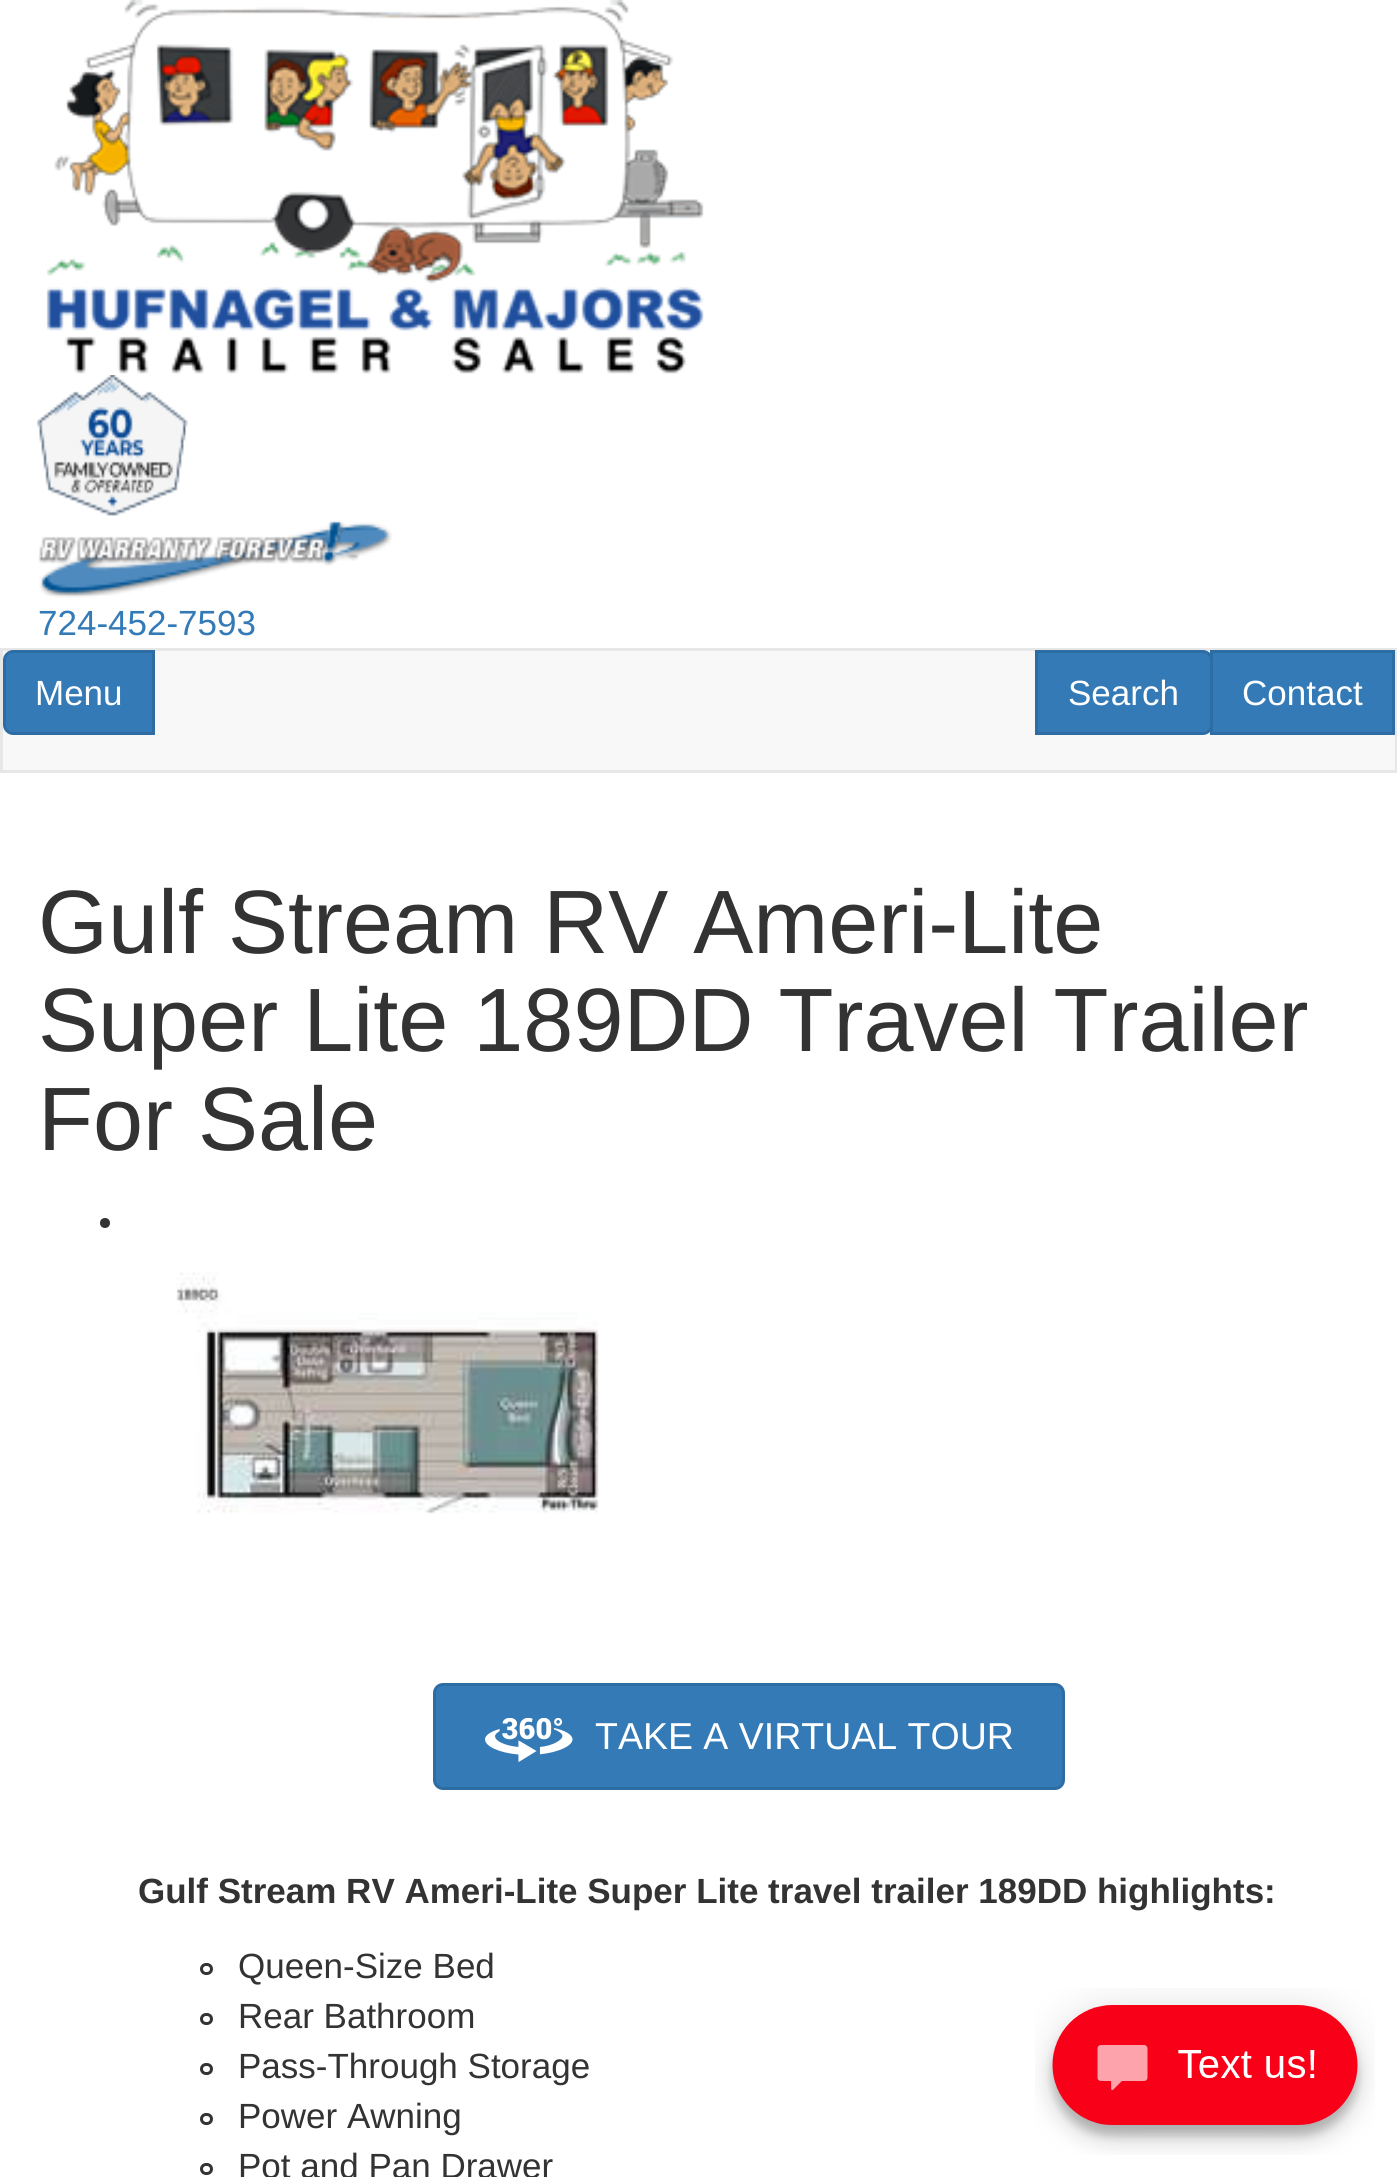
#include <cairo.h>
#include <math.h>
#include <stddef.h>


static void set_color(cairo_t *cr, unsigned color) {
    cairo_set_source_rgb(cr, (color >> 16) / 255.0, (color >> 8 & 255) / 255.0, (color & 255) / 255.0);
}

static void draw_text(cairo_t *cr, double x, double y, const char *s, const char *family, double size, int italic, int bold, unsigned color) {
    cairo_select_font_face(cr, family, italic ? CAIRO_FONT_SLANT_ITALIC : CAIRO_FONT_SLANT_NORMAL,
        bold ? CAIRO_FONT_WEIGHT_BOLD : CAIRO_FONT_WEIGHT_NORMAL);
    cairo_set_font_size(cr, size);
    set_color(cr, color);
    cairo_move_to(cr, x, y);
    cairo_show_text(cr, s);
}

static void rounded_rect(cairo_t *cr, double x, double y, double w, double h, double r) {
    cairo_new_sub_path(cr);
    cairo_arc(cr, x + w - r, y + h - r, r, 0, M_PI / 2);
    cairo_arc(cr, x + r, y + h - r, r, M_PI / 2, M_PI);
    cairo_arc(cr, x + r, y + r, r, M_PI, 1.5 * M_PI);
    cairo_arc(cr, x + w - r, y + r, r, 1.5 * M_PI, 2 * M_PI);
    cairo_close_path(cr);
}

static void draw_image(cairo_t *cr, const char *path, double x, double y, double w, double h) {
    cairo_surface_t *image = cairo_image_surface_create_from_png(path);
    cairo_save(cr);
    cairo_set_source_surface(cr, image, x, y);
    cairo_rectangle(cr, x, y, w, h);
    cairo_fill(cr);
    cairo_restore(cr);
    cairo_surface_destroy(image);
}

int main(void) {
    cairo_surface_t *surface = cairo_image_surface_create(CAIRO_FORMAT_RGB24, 1397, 2177);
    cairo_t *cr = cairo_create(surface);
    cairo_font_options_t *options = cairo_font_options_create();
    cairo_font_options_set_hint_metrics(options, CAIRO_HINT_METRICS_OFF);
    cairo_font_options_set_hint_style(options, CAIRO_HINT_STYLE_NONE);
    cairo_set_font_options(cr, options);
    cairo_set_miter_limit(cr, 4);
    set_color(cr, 0xFFFFFF);
    cairo_paint(cr);
    draw_image(cr, "assets/img1.png", 46, 0, 658, 374);
    draw_image(cr, "assets/img2.png", 37, 375, 151, 141);
    draw_image(cr, "assets/img3.png", 38, 520, 354, 78);
    draw_text(cr, 38, 635, "724-452-7593", "Liberation Sans", 35, 0, 0, 0x337AB7);
    set_color(cr, 0xF8F8F8);
    cairo_rectangle(cr, 1.5, 649.5, 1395, 122);
    cairo_fill_preserve(cr);
    set_color(cr, 0xE7E7E7);
    cairo_set_line_width(cr, 3);
    cairo_stroke(cr);
    set_color(cr, 0x337AB7);
    cairo_new_path(cr);
    cairo_move_to(cr, 13, 651.5);
    cairo_line_to(cr, 153.5, 651.5);
    cairo_line_to(cr, 153.5, 733.5);
    cairo_line_to(cr, 13, 733.5);
    cairo_curve_to(cr, 8.5, 733.5, 4.5, 729.5, 4.5, 725);
    cairo_line_to(cr, 4.5, 660);
    cairo_curve_to(cr, 4.5, 655.5, 8.5, 651.5, 13, 651.5);
    cairo_close_path(cr);
    cairo_fill_preserve(cr);
    set_color(cr, 0x2E6DA4);
    cairo_stroke(cr);
    draw_text(cr, 35, 705, "Menu", "Liberation Sans", 35, 0, 0, 0xFFFFFF);
    set_color(cr, 0x337AB7);
    cairo_rectangle(cr, 1211.5, 651.5, 182, 82);
    cairo_fill_preserve(cr);
    set_color(cr, 0x2E6DA4);
    cairo_stroke(cr);
    set_color(cr, 0x337AB7);
    cairo_new_path(cr);
    cairo_move_to(cr, 1036.5, 651.5);
    cairo_line_to(cr, 1203, 651.5);
    cairo_curve_to(cr, 1207.5, 651.5, 1211.5, 655.5, 1211.5, 660);
    cairo_line_to(cr, 1211.5, 725);
    cairo_curve_to(cr, 1211.5, 729.5, 1207.5, 733.5, 1203, 733.5);
    cairo_line_to(cr, 1036.5, 733.5);
    cairo_close_path(cr);
    cairo_fill_preserve(cr);
    set_color(cr, 0x2E6DA4);
    cairo_stroke(cr);
    draw_text(cr, 1068, 705, "Search", "Liberation Sans", 35, 0, 0, 0xFFFFFF);
    draw_text(cr, 1242, 705, "Contact", "Liberation Sans", 35, 0, 0, 0xFFFFFF);
    draw_text(cr, 38, 953, "Gulf Stream RV Ameri-Lite", "Liberation Sans", 90, 0, 0, 0x333333);
    draw_text(cr, 38, 1051, "Super Lite 189DD Travel Trailer", "Liberation Sans", 90, 0, 0, 0x333333);
    draw_text(cr, 38, 1150, "For Sale", "Liberation Sans", 90, 0, 0, 0x333333);
    cairo_new_path(cr);
    cairo_arc(cr, 105, 1223, 5, 0, 2 * M_PI);
    cairo_fill(cr);
    draw_image(cr, "assets/img4.png", 176, 1272, 423, 242);
    set_color(cr, 0x337AB7);
    rounded_rect(cr, 434.5, 1684.5, 629, 104, 8.5);
    cairo_fill_preserve(cr);
    set_color(cr, 0x2E6DA4);
    cairo_stroke(cr);
    draw_image(cr, "assets/img5.png", 485, 1718, 88, 44);
    draw_text(cr, 595, 1749, "TAKE A VIRTUAL TOUR", "Liberation Sans", 37.5, 0, 0, 0xFFFFFF);
    draw_text(cr, 138, 1903, "Gulf Stream RV Ameri-Lite Super Lite travel trailer 189DD highlights:", "Liberation Sans", 35, 0, 1, 0x333333);
    rounded_rect(cr, 201.5, 1964.5, 10, 9, 4.5);
    cairo_stroke(cr);
    draw_text(cr, 238, 1978, "Queen-Size Bed", "Liberation Sans", 35, 0, 0, 0x333333);
    rounded_rect(cr, 201.5, 2014.5, 10, 9, 4.5);
    cairo_stroke(cr);
    draw_text(cr, 238, 2028, "Rear Bathroom", "Liberation Sans", 35, 0, 0, 0x333333);
    rounded_rect(cr, 201.5, 2064.5, 10, 9, 4.5);
    cairo_stroke(cr);
    draw_text(cr, 238, 2078, "Pass-Through Storage", "Liberation Sans", 35, 0, 0, 0x333333);
    rounded_rect(cr, 201.5, 2114.5, 10, 9, 4.5);
    cairo_stroke(cr);
    draw_text(cr, 238, 2128, "Power Awning", "Liberation Sans", 35, 0, 0, 0x333333);
    rounded_rect(cr, 201.5, 2164.5, 10, 9, 4.5);
    cairo_stroke(cr);
    draw_text(cr, 238, 2178, "Pot and Pan Drawer", "Liberation Sans", 35, 0, 0, 0x333333);
    draw_image(cr, "assets/img6.png", 1035, 1988, 340, 167);
    cairo_surface_write_to_png(surface, "output.png");
    cairo_font_options_destroy(options);
    cairo_destroy(cr);
    cairo_surface_destroy(surface);
    return 0;
}
